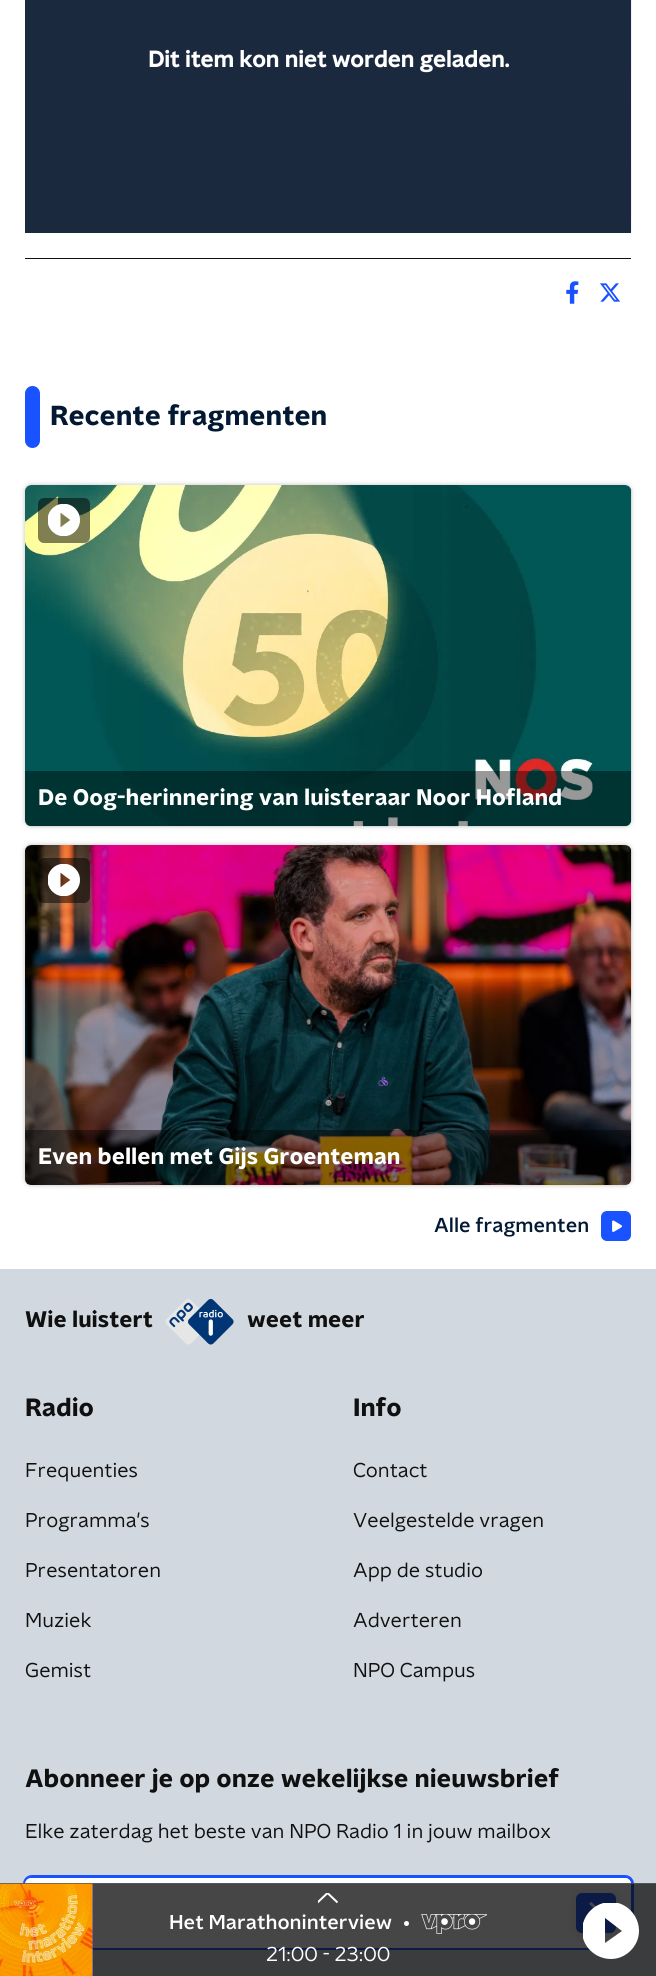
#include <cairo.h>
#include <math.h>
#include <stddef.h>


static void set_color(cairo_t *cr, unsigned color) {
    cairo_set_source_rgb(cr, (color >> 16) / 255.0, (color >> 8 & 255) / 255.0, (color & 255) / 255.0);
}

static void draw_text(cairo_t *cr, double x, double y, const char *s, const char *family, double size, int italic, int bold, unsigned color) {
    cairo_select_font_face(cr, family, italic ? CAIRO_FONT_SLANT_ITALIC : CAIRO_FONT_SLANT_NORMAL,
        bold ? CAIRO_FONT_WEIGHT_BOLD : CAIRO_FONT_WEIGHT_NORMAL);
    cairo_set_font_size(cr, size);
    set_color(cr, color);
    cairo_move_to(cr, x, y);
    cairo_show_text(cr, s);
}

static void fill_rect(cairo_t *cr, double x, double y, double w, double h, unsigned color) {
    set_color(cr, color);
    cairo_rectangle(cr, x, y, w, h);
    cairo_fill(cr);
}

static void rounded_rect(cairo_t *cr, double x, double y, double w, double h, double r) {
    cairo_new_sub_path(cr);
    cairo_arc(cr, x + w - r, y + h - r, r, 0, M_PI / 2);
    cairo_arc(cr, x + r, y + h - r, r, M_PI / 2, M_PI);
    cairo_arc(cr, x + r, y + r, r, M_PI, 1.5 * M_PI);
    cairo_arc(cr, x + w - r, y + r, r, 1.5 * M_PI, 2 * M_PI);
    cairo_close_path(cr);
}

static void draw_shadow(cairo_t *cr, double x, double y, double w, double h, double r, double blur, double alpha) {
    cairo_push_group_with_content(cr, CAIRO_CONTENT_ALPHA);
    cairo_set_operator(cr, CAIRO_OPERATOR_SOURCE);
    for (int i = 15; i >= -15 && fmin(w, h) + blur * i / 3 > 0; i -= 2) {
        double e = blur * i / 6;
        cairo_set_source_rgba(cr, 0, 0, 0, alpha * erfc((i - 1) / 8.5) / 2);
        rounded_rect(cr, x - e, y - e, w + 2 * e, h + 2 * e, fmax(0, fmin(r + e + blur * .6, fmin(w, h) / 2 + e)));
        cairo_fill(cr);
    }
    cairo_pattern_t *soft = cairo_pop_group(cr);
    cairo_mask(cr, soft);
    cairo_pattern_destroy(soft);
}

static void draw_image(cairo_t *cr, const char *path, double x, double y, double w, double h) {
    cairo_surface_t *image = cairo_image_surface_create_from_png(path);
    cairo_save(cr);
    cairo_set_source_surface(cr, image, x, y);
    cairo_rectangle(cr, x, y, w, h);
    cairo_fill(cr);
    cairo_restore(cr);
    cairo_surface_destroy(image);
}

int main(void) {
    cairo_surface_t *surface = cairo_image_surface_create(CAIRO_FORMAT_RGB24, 656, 1976);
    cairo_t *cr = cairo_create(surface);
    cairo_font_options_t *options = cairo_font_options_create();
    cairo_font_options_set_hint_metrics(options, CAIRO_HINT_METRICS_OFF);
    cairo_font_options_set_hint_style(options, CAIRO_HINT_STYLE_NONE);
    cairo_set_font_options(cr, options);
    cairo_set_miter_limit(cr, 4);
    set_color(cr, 0xFFFFFF);
    cairo_paint(cr);
    fill_rect(cr, 25, 0, 606, 233, 0x1B293F);
    draw_text(cr, 148, 67, "Dit item kon niet worden geladen.", "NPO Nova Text", 22.5, 0, 1, 0xFFFFFF);
    draw_image(cr, "assets/img1.png", 631, 0, 1, 232);
    fill_rect(cr, 25, 258, 606, 1, 0x101010);
    draw_image(cr, "assets/img2.png", 566, 281, 13, 23);
    draw_image(cr, "assets/img3.png", 600, 283, 20, 19);
    set_color(cr, 0x1952FF);
    rounded_rect(cr, 25, 386, 15, 62, 7.5);
    cairo_fill(cr);
    draw_text(cr, 50, 425, "Recente fragmenten", "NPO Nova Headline", 27.5, 0, 1, 0x021833);
    set_color(cr, 0x000000);
    draw_shadow(cr, 25, 485, 606, 341, 6, 2.5, 0.25);
    set_color(cr, 0xFFFFFF);
    rounded_rect(cr, 25, 485, 606, 341, 6);
    cairo_fill(cr);
    draw_image(cr, "assets/img4.png", 25, 485, 607, 342);
    cairo_set_source_rgba(cr, 0, 0, 0, 0.5);
    rounded_rect(cr, 38, 498, 52, 45, 6);
    cairo_fill(cr);
    draw_image(cr, "assets/img5.png", 48, 504, 32, 32);
    cairo_set_source_rgba(cr, 0, 0, 0, 0.4);
    cairo_new_path(cr);
    cairo_move_to(cr, 25, 771);
    cairo_line_to(cr, 631, 771);
    cairo_line_to(cr, 631, 820);
    cairo_curve_to(cr, 631, 823.5, 628.5, 826, 625, 826);
    cairo_line_to(cr, 31, 826);
    cairo_curve_to(cr, 27.5, 826, 25, 823.5, 25, 820);
    cairo_close_path(cr);
    cairo_fill(cr);
    draw_text(cr, 38, 805, "De Oog-herinnering van luisteraar Noor Hofland", "NPO Nova Headline", 22.5, 0, 1, 0xFFFFFF);
    set_color(cr, 0x000000);
    draw_shadow(cr, 25, 845, 606, 340, 6, 2.5, 0.25);
    set_color(cr, 0xFFFFFF);
    rounded_rect(cr, 25, 845, 606, 340, 6);
    cairo_fill(cr);
    draw_image(cr, "assets/img6.png", 25, 845, 607, 340);
    cairo_set_source_rgba(cr, 0, 0, 0, 0.5);
    rounded_rect(cr, 38, 858, 52, 45, 6);
    cairo_fill(cr);
    draw_image(cr, "assets/img7.png", 48, 864, 32, 32);
    cairo_set_source_rgba(cr, 0, 0, 0, 0.4);
    cairo_new_path(cr);
    cairo_move_to(cr, 25, 1130);
    cairo_line_to(cr, 631, 1130);
    cairo_line_to(cr, 631, 1179);
    cairo_curve_to(cr, 631, 1182.5, 628.5, 1185, 625, 1185);
    cairo_line_to(cr, 31, 1185);
    cairo_curve_to(cr, 27.5, 1185, 25, 1182.5, 25, 1179);
    cairo_close_path(cr);
    cairo_fill(cr);
    draw_text(cr, 38, 1164, "Even bellen met Gijs Groenteman", "NPO Nova Headline", 22.5, 0, 1, 0xFFFFFF);
    draw_text(cr, 434, 1232, "Alle fragmenten", "NPO Nova Text Medium", 20, 0, 0, 0x021833);
    draw_image(cr, "assets/img8.png", 601, 1211, 30, 30);
    fill_rect(cr, 0, 1269, 656, 707, 0xD1D8DF);
    draw_text(cr, 25, 1327, "Wie luistert", "NPO Nova Headline", 22.5, 0, 1, 0x101010);
    draw_image(cr, "assets/img9.png", 165, 1299, 69, 46);
    draw_text(cr, 247, 1327, "weet meer", "NPO Nova Headline", 22.5, 0, 1, 0x101010);
    draw_text(cr, 25, 1416, "Radio", "NPO Nova Headline", 25, 0, 1, 0x101010);
    draw_text(cr, 25, 1477, "Frequenties", "NPO Nova Text", 20, 0, 0, 0x101010);
    draw_text(cr, 25, 1527, "Programma's", "NPO Nova Text", 20, 0, 0, 0x101010);
    draw_text(cr, 25, 1577, "Presentatoren", "NPO Nova Text", 20, 0, 0, 0x101010);
    draw_text(cr, 25, 1627, "Muziek", "NPO Nova Text", 20, 0, 0, 0x101010);
    draw_text(cr, 25, 1677, "Gemist", "NPO Nova Text", 20, 0, 0, 0x101010);
    draw_text(cr, 353, 1416, "Info", "NPO Nova Headline", 25, 0, 1, 0x101010);
    draw_text(cr, 353, 1477, "Contact", "NPO Nova Text", 20, 0, 0, 0x101010);
    draw_text(cr, 353, 1527, "Veelgestelde vragen", "NPO Nova Text", 20, 0, 0, 0x101010);
    draw_text(cr, 353, 1577, "App de studio", "NPO Nova Text", 20, 0, 0, 0x101010);
    draw_text(cr, 353, 1627, "Adverteren", "NPO Nova Text", 20, 0, 0, 0x101010);
    draw_text(cr, 353, 1677, "NPO Campus", "NPO Nova Text", 20, 0, 0, 0x101010);
    draw_text(cr, 25, 1787, "Abonneer je op onze wekelijkse nieuwsbrief", "NPO Nova Headline", 25, 0, 1, 0x101010);
    draw_text(cr, 25, 1838, "Elke zaterdag het beste van NPO Radio 1 in jouw mailbox", "NPO Nova Text", 20, 0, 0, 0x101010);
    rounded_rect(cr, 24.5, 1876.5, 608, 72, 7.5);
    set_color(cr, 0x1952FF);
    cairo_set_line_width(cr, 3);
    cairo_stroke(cr);
    set_color(cr, 0xFFFFFF);
    rounded_rect(cr, 25, 1878, 606, 70, 6);
    cairo_fill(cr);
    set_color(cr, 0x000000);
    draw_shadow(cr, 575, 1894, 43, 42, 8, 4.5, 0.1);
    set_color(cr, 0x1952FF);
    rounded_rect(cr, 576, 1893, 40, 40, 6);
    cairo_fill(cr);
    draw_image(cr, "assets/img10.png", 589, 1902, 8, 7);
    cairo_set_source_rgba(cr, 0.035, 0.035, 0.035, 0.75);
    cairo_rectangle(cr, 0, 1883, 656, 93);
    cairo_fill(cr);
    cairo_set_source_rgba(cr, 0.373, 0.373, 0.373, 0.65);
    cairo_rectangle(cr, 0, 1883, 656, 1);
    cairo_fill(cr);
    fill_rect(cr, 92, 1884, 1, 92, 0x1952FF);
    draw_image(cr, "assets/img11.png", 0, 1883, 93, 93);
    cairo_save(cr);
    cairo_rectangle(cr, 318, 1893, 22, 11);
    cairo_clip(cr);
    cairo_new_path(cr);
    cairo_move_to(cr, 337.5, 1902.5);
    cairo_line_to(cr, 327.5, 1893);
    cairo_line_to(cr, 317.5, 1902.5);
    set_color(cr, 0xFFFFFF);
    cairo_set_line_width(cr, 2);
    cairo_stroke(cr);
    cairo_restore(cr);
    draw_text(cr, 169, 1929, "Het Marathoninterview", "NPO Nova Text Medium", 20, 0, 0, 0xFFFFFF);
    cairo_new_path(cr);
    cairo_arc(cr, 406.5, 1923.5, 2.5, 0, 2 * M_PI);
    cairo_fill(cr);
    draw_image(cr, "assets/img12.png", 421, 1914, 66, 20);
    draw_text(cr, 266, 1961, "21:00 - 23:00", "NPO Nova Text", 20, 0, 0, 0xFFFFFF);
    cairo_save(cr);
    cairo_rectangle(cr, 583, 1903, 56, 56);
    cairo_clip(cr);
    cairo_new_path(cr);
    cairo_move_to(cr, 611, 1902);
    cairo_curve_to(cr, 595, 1902, 582, 1915, 582, 1931);
    cairo_curve_to(cr, 582, 1946, 595, 1959, 611, 1959);
    cairo_curve_to(cr, 626, 1959, 639, 1946, 639, 1931);
    cairo_curve_to(cr, 639, 1915, 626, 1902, 611, 1902);
    cairo_close_path(cr);
    cairo_move_to(cr, 605, 1943);
    cairo_line_to(cr, 605, 1918);
    cairo_line_to(cr, 622, 1931);
    cairo_close_path(cr);
    cairo_fill(cr);
    cairo_restore(cr);
    cairo_surface_write_to_png(surface, "output.png");
    cairo_font_options_destroy(options);
    cairo_destroy(cr);
    cairo_surface_destroy(surface);
    return 0;
}
